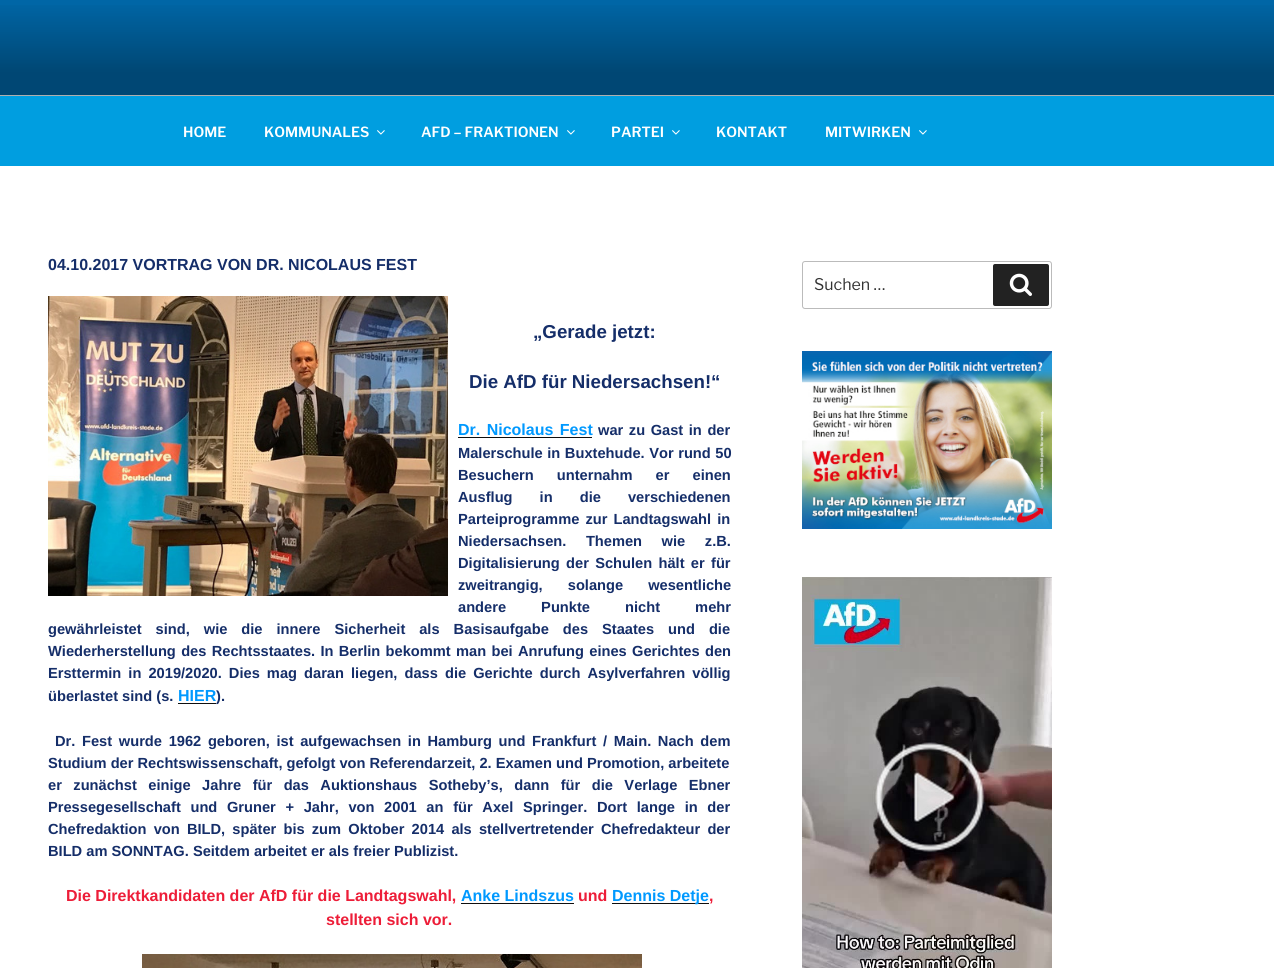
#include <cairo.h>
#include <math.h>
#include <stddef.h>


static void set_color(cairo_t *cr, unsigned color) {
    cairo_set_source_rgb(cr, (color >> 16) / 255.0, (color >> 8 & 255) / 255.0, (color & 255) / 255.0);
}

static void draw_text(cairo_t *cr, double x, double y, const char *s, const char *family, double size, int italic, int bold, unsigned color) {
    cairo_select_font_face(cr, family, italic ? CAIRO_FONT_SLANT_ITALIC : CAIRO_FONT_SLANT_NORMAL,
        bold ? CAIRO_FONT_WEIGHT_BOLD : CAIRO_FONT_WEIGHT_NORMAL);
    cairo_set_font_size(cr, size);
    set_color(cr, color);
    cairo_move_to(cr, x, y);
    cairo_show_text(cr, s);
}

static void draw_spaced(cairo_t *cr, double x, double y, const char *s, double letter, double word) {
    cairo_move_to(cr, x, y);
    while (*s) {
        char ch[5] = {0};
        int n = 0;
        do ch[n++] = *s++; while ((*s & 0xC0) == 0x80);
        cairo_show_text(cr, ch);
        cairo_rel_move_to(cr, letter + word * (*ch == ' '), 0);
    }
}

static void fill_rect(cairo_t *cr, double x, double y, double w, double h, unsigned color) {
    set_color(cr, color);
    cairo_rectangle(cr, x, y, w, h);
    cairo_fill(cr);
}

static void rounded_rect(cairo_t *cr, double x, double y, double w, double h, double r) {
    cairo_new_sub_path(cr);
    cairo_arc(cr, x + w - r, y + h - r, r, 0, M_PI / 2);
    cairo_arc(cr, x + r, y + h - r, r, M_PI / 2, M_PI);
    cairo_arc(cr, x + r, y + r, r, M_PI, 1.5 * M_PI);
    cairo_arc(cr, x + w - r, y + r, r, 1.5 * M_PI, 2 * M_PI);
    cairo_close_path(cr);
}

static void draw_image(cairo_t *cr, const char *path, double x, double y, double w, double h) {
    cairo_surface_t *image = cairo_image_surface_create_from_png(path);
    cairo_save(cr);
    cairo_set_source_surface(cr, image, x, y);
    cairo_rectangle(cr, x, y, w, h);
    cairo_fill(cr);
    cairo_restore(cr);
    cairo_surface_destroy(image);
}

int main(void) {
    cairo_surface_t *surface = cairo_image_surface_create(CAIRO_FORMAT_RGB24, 1274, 968);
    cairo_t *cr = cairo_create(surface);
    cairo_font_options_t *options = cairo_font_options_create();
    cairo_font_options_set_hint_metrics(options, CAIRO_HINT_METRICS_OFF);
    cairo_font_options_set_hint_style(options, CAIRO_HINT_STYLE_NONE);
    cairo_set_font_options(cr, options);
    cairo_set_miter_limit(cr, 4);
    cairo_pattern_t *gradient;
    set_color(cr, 0xFFFFFF);
    cairo_paint(cr);
    fill_rect(cr, 0, 95, 1274, 1, 0xFAFAFA);
    fill_rect(cr, 0, 0, 1274, 95, 0x0066A6);
    gradient = cairo_pattern_create_linear(637, 0, 637, 96);
    cairo_pattern_add_color_stop_rgba(gradient, 0, 0, 0, 0, 0);
    cairo_pattern_add_color_stop_rgba(gradient, 0.75, 0, 0, 0, 0.3);
    cairo_pattern_add_color_stop_rgba(gradient, 1, 0, 0, 0, 0.3);
    cairo_set_source(cr, gradient);
    cairo_pattern_destroy(gradient);
    cairo_rectangle(cr, 0, 5, 1274, 91);
    cairo_fill(cr);
    fill_rect(cr, 0, 96, 1274, 70, 0x009EE0);
    draw_text(cr, 183, 137, "HOME", "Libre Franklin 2 Thin", 14, 0, 0, 0xFFFFFF);
    draw_text(cr, 264, 137, "KOMMUNALES", "Libre Franklin 2 Thin", 14, 0, 0, 0xFFFFFF);
    draw_image(cr, "assets/img1.png", 377, 130, 8, 5);
    draw_text(cr, 421, 137, "AFD – FRAKTIONEN", "Libre Franklin 2 Thin", 14, 0, 0, 0xFFFFFF);
    draw_image(cr, "assets/img1.png", 567, 130, 8, 5);
    draw_text(cr, 611, 137, "PARTEI", "Libre Franklin 2 Thin", 14, 0, 0, 0xFFFFFF);
    draw_image(cr, "assets/img1.png", 672, 130, 8, 5);
    draw_text(cr, 716, 137, "KONTAKT", "Libre Franklin 2 Thin", 14, 0, 0, 0xFFFFFF);
    draw_text(cr, 825, 137, "MITWIRKEN", "Libre Franklin 2 Thin", 14, 0, 0, 0xFFFFFF);
    draw_image(cr, "assets/img1.png", 919, 130, 8, 5);
    draw_text(cr, 48, 270, "04.10.2017 VORTRAG VON DR. NICOLAUS FEST", "Liberation Sans", 16, 0, 1, 0x152E69);
    draw_image(cr, "assets/img2.png", 48, 296, 400, 300);
    draw_text(cr, 533, 338, "„Gerade jetzt:", "Liberation Sans", 18.7, 0, 1, 0x152E69);
    draw_text(cr, 469, 388, "Die AfD für Niedersachsen!“", "Liberation Sans", 18.7, 0, 1, 0x152E69);
    cairo_set_font_size(cr, 16);
    set_color(cr, 0x0099FF);
    draw_spaced(cr, 458, 435, "Dr. Nicolaus Fest", 0, 2);
    fill_rect(cr, 458, 437, 134, 1, 0x0F0F0F);
    cairo_set_font_size(cr, 14.65);
    set_color(cr, 0x152E69);
    draw_spaced(cr, 598, 435, "war zu Gast in der", 0, 1.5);
    draw_spaced(cr, 458, 458, "Malerschule in Buxtehude. Vor rund 50", 0, 0.5);
    draw_spaced(cr, 458, 480, "Besuchern unternahm er einen", 0, 19);
    draw_spaced(cr, 458, 502, "Ausflug in die verschiedenen", 0, 23);
    draw_spaced(cr, 458, 524, "Parteiprogramme zur Landtagswahl in", 0, 2);
    draw_spaced(cr, 458, 546, "Niedersachsen. Themen wie z.B.", 0, 15.5);
    draw_spaced(cr, 458, 568, "Digitalisierung der Schulen hält er für", 0, 2.25);
    draw_spaced(cr, 458, 590, "zweitrangig, solange wesentliche", 0, 21);
    draw_spaced(cr, 458, 612, "andere Punkte nicht mehr", 0, 31);
    draw_spaced(cr, 48, 634, "gewährleistet sind, wie die innere Sicherheit als Basisaufgabe des Staates und die", 0, 9.9);
    draw_spaced(cr, 48, 656, "Wiederherstellung des Rechtsstaates. In Berlin bekommt man bei Anrufung eines Gerichtes den", 0, 1.25);
    draw_spaced(cr, 48, 678, "Ersttermin in 2019/2020. Dies mag daran liegen, dass die Gerichte durch Asylverfahren völlig", 0, 3);
    draw_text(cr, 48, 701, "überlastet sind (s.", "Liberation Sans", 14.65, 0, 1, 0x152E69);
    draw_text(cr, 178, 701, "HIER", "Liberation Sans", 16, 0, 1, 0x0099FF);
    fill_rect(cr, 178, 703, 38, 1, 0x0F0F0F);
    draw_text(cr, 216, 701, ").", "Liberation Sans", 14.65, 0, 1, 0x152E69);
    draw_spaced(cr, 55, 746, "Dr. Fest wurde 1962 geboren, ist aufgewachsen in Hamburg und Frankfurt / Main. Nach dem", 0, 2.6);
    draw_text(cr, 48, 768, "Studium der Rechtswissenschaft, gefolgt von Referendarzeit, 2. Examen und Promotion, arbeitete", "Liberation Sans", 14.65, 0, 1, 0x152E69);
    draw_spaced(cr, 48, 790, "er zunächst einige Jahre für das Auktionshaus Sotheby’s, dann für die Verlage Ebner", 0, 7.4);
    draw_spaced(cr, 48, 812, "Pressegesellschaft und Gruner + Jahr, von 2001 an für Axel Springer. Dort lange in der", 0, 5.6);
    draw_spaced(cr, 48, 834, "Chefredaktion von BILD, später bis zum Oktober 2014 als stellvertretender Chefredakteur der", 0, 3.1);
    draw_text(cr, 48, 856, "BILD am SONNTAG. Seitdem arbeitet er als freier Publizist.", "Liberation Sans", 14.65, 0, 1, 0x152E69);
    draw_text(cr, 66, 901, "Die Direktkandidaten der AfD für die Landtagswahl,", "Liberation Sans", 16, 0, 1, 0xED1D38);
    draw_text(cr, 461, 901, "Anke Lindszus", "Liberation Sans", 16, 0, 1, 0x0099FF);
    fill_rect(cr, 461, 903, 113, 1, 0x0F0F0F);
    draw_text(cr, 578, 901, "und", "Liberation Sans", 16, 0, 1, 0xED1D38);
    fill_rect(cr, 612, 903, 97, 1, 0x0F0F0F);
    draw_text(cr, 612, 901, "Dennis Detje", "Liberation Sans", 16, 0, 1, 0x0099FF);
    draw_text(cr, 709, 901, ",", "Liberation Sans", 16, 0, 1, 0xED1D38);
    draw_text(cr, 326, 925, "stellten sich vor.", "Liberation Sans", 16, 0, 1, 0xED1D38);
    draw_image(cr, "assets/img3.png", 142, 954, 500, 14);
    rounded_rect(cr, 802.5, 261.5, 249, 47, 2.5);
    set_color(cr, 0xBBBBBB);
    cairo_set_line_width(cr, 1);
    cairo_stroke(cr);
    draw_text(cr, 814, 290, "Suchen …", "Libre Franklin Thin", 16, 0, 0, 0x333333);
    set_color(cr, 0x222222);
    rounded_rect(cr, 993, 264, 56, 42, 2);
    cairo_fill(cr);
    draw_image(cr, "assets/img4.png", 1009, 273, 23, 23);
    draw_image(cr, "assets/img5.png", 802, 351, 250, 178);
    draw_image(cr, "assets/img6.png", 802, 577, 250, 391);
    cairo_surface_write_to_png(surface, "output.png");
    cairo_font_options_destroy(options);
    cairo_destroy(cr);
    cairo_surface_destroy(surface);
    return 0;
}
